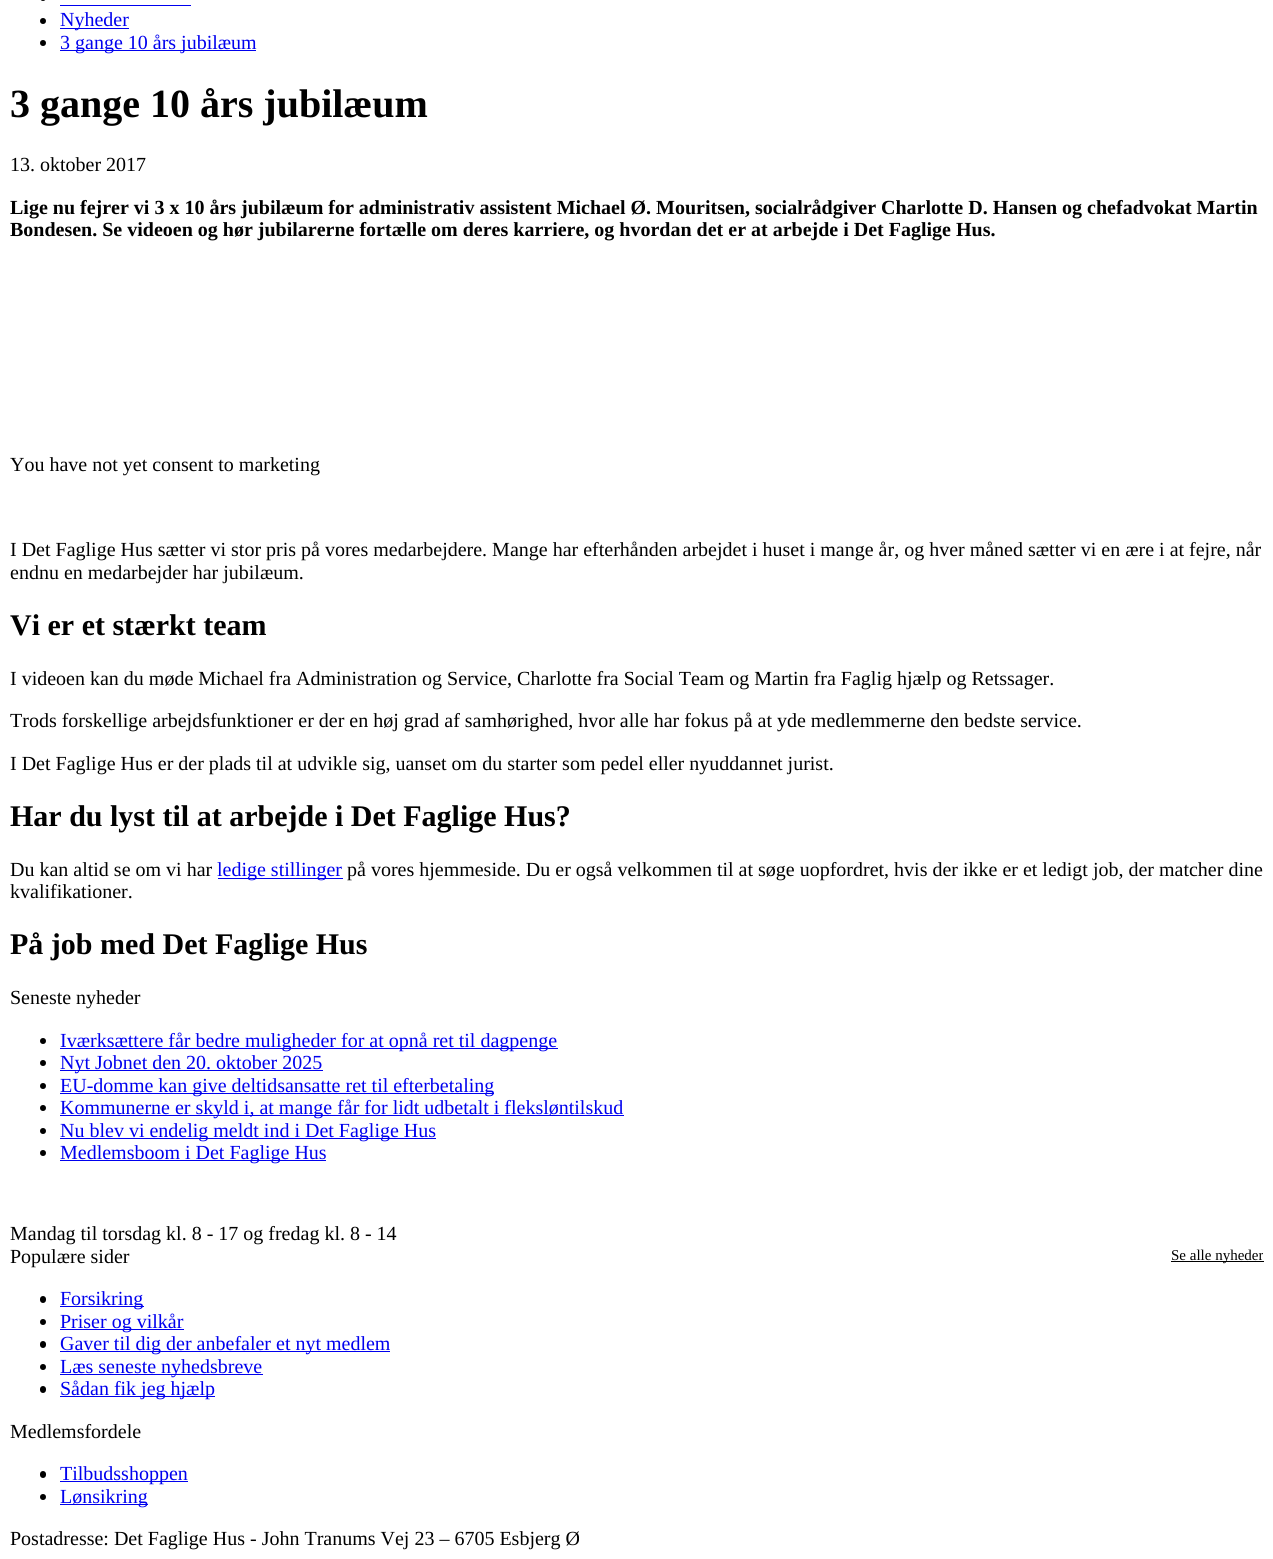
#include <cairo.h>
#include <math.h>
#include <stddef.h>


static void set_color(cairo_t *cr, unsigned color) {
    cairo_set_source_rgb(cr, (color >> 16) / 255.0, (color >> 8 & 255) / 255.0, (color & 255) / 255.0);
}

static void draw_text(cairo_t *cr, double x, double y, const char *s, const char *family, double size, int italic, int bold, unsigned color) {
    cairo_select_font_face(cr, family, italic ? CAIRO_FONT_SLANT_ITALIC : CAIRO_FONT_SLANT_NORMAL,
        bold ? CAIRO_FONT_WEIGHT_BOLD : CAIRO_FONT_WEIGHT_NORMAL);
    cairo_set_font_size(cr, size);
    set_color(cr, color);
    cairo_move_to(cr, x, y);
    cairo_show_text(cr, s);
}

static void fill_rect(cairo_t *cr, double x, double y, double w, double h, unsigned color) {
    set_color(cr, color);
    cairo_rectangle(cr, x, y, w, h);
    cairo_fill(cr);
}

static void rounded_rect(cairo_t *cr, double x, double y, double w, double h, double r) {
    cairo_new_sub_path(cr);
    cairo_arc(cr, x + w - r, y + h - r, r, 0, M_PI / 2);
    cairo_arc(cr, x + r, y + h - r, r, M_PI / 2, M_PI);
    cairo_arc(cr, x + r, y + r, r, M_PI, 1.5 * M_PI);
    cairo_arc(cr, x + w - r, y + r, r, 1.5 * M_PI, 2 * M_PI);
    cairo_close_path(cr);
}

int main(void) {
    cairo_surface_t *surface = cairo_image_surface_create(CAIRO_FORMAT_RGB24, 1273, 1559);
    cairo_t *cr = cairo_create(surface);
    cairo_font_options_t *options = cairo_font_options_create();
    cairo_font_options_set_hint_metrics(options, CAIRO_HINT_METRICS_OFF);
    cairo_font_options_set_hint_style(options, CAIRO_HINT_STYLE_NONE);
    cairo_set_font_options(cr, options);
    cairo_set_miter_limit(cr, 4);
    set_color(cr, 0xFFFFFF);
    cairo_paint(cr);
    set_color(cr, 0x000000);
    rounded_rect(cr, 40, -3, 6, 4, 3);
    cairo_fill(cr);
    fill_rect(cr, 60, 5, 131, 1, 0x0000EE);
    set_color(cr, 0x000000);
    cairo_arc(cr, 43, 21, 3, 0, 2 * M_PI);
    cairo_fill(cr);
    fill_rect(cr, 60, 28, 69, 1, 0x0000EE);
    draw_text(cr, 60, 26, "Nyheder", "Liberation Serif", 20, 0, 0, 0x0000EE);
    set_color(cr, 0x000000);
    cairo_new_path(cr);
    cairo_arc(cr, 43, 43, 3, 0, 2 * M_PI);
    cairo_fill(cr);
    fill_rect(cr, 60, 50, 196, 1, 0x0000EE);
    draw_text(cr, 60, 49, "3 gange 10 års jubilæum", "Liberation Serif", 20, 0, 0, 0x0000EE);
    draw_text(cr, 10, 117, "3 gange 10 års jubilæum", "Liberation Serif", 40, 0, 1, 0x000000);
    draw_text(cr, 10, 171, "13. oktober 2017", "Liberation Serif", 20, 0, 0, 0x000000);
    draw_text(cr, 10, 214, "Lige nu fejrer vi 3 x 10 års jubilæum for administrativ assistent Michael Ø. Mouritsen, socialrådgiver Charlotte D. Hansen og chefadvokat Martin", "Liberation Serif", 20, 0, 1, 0x000000);
    draw_text(cr, 10, 236, "Bondesen. Se videoen og hør jubilarerne fortælle om deres karriere, og hvordan det er at arbejde i Det Faglige Hus.", "Liberation Serif", 20, 0, 1, 0x000000);
    draw_text(cr, 10, 471, "You have not yet consent to marketing", "Liberation Serif", 20, 0, 0, 0x000000);
    draw_text(cr, 10, 556, "I Det Faglige Hus sætter vi stor pris på vores medarbejdere. Mange har efterhånden arbejdet i huset i mange år, og hver måned sætter vi en ære i at fejre, når", "Liberation Serif", 20, 0, 0, 0x000000);
    draw_text(cr, 10, 579, "endnu en medarbejder har jubilæum.", "Liberation Serif", 20, 0, 0, 0x000000);
    draw_text(cr, 10, 635, "Vi er et stærkt team", "Liberation Serif", 30, 0, 1, 0x000000);
    draw_text(cr, 10, 685, "I videoen kan du møde Michael fra Administration og Service, Charlotte fra Social Team og Martin fra Faglig hjælp og Retssager.", "Liberation Serif", 20, 0, 0, 0x000000);
    draw_text(cr, 10, 727, "Trods forskellige arbejdsfunktioner er der en høj grad af samhørighed, hvor alle har fokus på at yde medlemmerne den bedste service.", "Liberation Serif", 20, 0, 0, 0x000000);
    draw_text(cr, 10, 770, "I Det Faglige Hus er der plads til at udvikle sig, uanset om du starter som pedel eller nyuddannet jurist.", "Liberation Serif", 20, 0, 0, 0x000000);
    draw_text(cr, 10, 826, "Har du lyst til at arbejde i Det Faglige Hus?", "Liberation Serif", 30, 0, 1, 0x000000);
    draw_text(cr, 10, 876, "Du kan altid se om vi har", "Liberation Serif", 20, 0, 0, 0x000000);
    fill_rect(cr, 218, 878, 125, 1, 0x0000EE);
    draw_text(cr, 217, 876, "ledige stillinger", "Liberation Serif", 20, 0, 0, 0x0000EE);
    draw_text(cr, 347, 876, "på vores hjemmeside. Du er også velkommen til at søge uopfordret, hvis der ikke er et ledigt job, der matcher dine", "Liberation Serif", 20, 0, 0, 0x000000);
    draw_text(cr, 10, 898, "kvalifikationer.", "Liberation Serif", 20, 0, 0, 0x000000);
    draw_text(cr, 10, 954, "På job med Det Faglige Hus", "Liberation Serif", 30, 0, 1, 0x000000);
    draw_text(cr, 10, 1004, "Seneste nyheder", "Liberation Serif", 20, 0, 0, 0x000000);
    cairo_new_path(cr);
    cairo_arc(cr, 43, 1041, 3, 0, 2 * M_PI);
    cairo_fill(cr);
    fill_rect(cr, 60, 1048, 498, 1, 0x0000EE);
    draw_text(cr, 60, 1047, "Iværksættere får bedre muligheder for at opnå ret til dagpenge", "Liberation Serif", 20, 0, 0, 0x0000EE);
    set_color(cr, 0x000000);
    cairo_new_path(cr);
    cairo_arc(cr, 43, 1063, 3, 0, 2 * M_PI);
    cairo_fill(cr);
    fill_rect(cr, 60, 1070, 263, 1, 0x0000EE);
    draw_text(cr, 60, 1069, "Nyt Jobnet den 20. oktober 2025", "Liberation Serif", 20, 0, 0, 0x0000EE);
    set_color(cr, 0x000000);
    cairo_new_path(cr);
    cairo_arc(cr, 43, 1086, 3, 0, 2 * M_PI);
    cairo_fill(cr);
    fill_rect(cr, 60, 1093, 434, 1, 0x0000EE);
    draw_text(cr, 60, 1092, "EU-domme kan give deltidsansatte ret til efterbetaling", "Liberation Serif", 20, 0, 0, 0x0000EE);
    set_color(cr, 0x000000);
    cairo_new_path(cr);
    cairo_arc(cr, 43, 1108, 3, 0, 2 * M_PI);
    cairo_fill(cr);
    fill_rect(cr, 60, 1115, 564, 1, 0x0000EE);
    draw_text(cr, 60, 1114, "Kommunerne er skyld i, at mange får for lidt udbetalt i fleksløntilskud", "Liberation Serif", 20, 0, 0, 0x0000EE);
    set_color(cr, 0x000000);
    cairo_new_path(cr);
    cairo_arc(cr, 43, 1131, 3, 0, 2 * M_PI);
    cairo_fill(cr);
    fill_rect(cr, 60, 1138, 376, 1, 0x0000EE);
    draw_text(cr, 60, 1137, "Nu blev vi endelig meldt ind i Det Faglige Hus", "Liberation Serif", 20, 0, 0, 0x0000EE);
    set_color(cr, 0x000000);
    cairo_new_path(cr);
    cairo_arc(cr, 43, 1153, 3, 0, 2 * M_PI);
    cairo_fill(cr);
    fill_rect(cr, 60, 1160, 266, 1, 0x0000EE);
    draw_text(cr, 60, 1159, "Medlemsboom i Det Faglige Hus", "Liberation Serif", 20, 0, 0, 0x0000EE);
    fill_rect(cr, 1171, 1261, 93, 1, 0x000000);
    draw_text(cr, 1171, 1260, "Se alle nyheder", "Liberation Serif", 15, 0, 0, 0x000000);
    draw_text(cr, 10, 1240, "Mandag til torsdag kl. 8 - 17 og fredag kl. 8 - 14", "Liberation Serif", 20, 0, 0, 0x000000);
    draw_text(cr, 10, 1263, "Populære sider", "Liberation Serif", 20, 0, 0, 0x000000);
    rounded_rect(cr, 40, 1296, 6, 7, 3);
    cairo_fill(cr);
    fill_rect(cr, 60, 1306, 84, 1, 0x0000EE);
    draw_text(cr, 60, 1305, "Forsikring", "Liberation Serif", 20, 0, 0, 0x0000EE);
    set_color(cr, 0x000000);
    cairo_new_path(cr);
    cairo_arc(cr, 43, 1322, 3, 0, 2 * M_PI);
    cairo_fill(cr);
    fill_rect(cr, 60, 1329, 124, 1, 0x0000EE);
    draw_text(cr, 60, 1328, "Priser og vilkår", "Liberation Serif", 20, 0, 0, 0x0000EE);
    set_color(cr, 0x000000);
    rounded_rect(cr, 40, 1341, 6, 7, 3);
    cairo_fill(cr);
    fill_rect(cr, 60, 1351, 330, 1, 0x0000EE);
    draw_text(cr, 60, 1350, "Gaver til dig der anbefaler et nyt medlem", "Liberation Serif", 20, 0, 0, 0x0000EE);
    set_color(cr, 0x000000);
    cairo_new_path(cr);
    cairo_arc(cr, 43, 1367, 3, 0, 2 * M_PI);
    cairo_fill(cr);
    fill_rect(cr, 60, 1374, 203, 1, 0x0000EE);
    draw_text(cr, 60, 1373, "Læs seneste nyhedsbreve", "Liberation Serif", 20, 0, 0, 0x0000EE);
    set_color(cr, 0x000000);
    rounded_rect(cr, 40, 1386, 6, 7, 3);
    cairo_fill(cr);
    fill_rect(cr, 60, 1396, 155, 1, 0x0000EE);
    draw_text(cr, 60, 1395, "Sådan fik jeg hjælp", "Liberation Serif", 20, 0, 0, 0x0000EE);
    draw_text(cr, 10, 1438, "Medlemsfordele", "Liberation Serif", 20, 0, 0, 0x000000);
    rounded_rect(cr, 40, 1471, 6, 7, 3);
    cairo_fill(cr);
    fill_rect(cr, 60, 1481, 128, 1, 0x0000EE);
    draw_text(cr, 60, 1480, "Tilbudsshoppen", "Liberation Serif", 20, 0, 0, 0x0000EE);
    set_color(cr, 0x000000);
    cairo_new_path(cr);
    cairo_arc(cr, 43, 1497, 3, 0, 2 * M_PI);
    cairo_fill(cr);
    fill_rect(cr, 60, 1504, 88, 1, 0x0000EE);
    draw_text(cr, 60, 1503, "Lønsikring", "Liberation Serif", 20, 0, 0, 0x0000EE);
    draw_text(cr, 10, 1545, "Postadresse: Det Faglige Hus - John Tranums Vej 23 – 6705 Esbjerg Ø", "Liberation Serif", 20, 0, 0, 0x000000);
    cairo_surface_write_to_png(surface, "output.png");
    cairo_font_options_destroy(options);
    cairo_destroy(cr);
    cairo_surface_destroy(surface);
    return 0;
}
